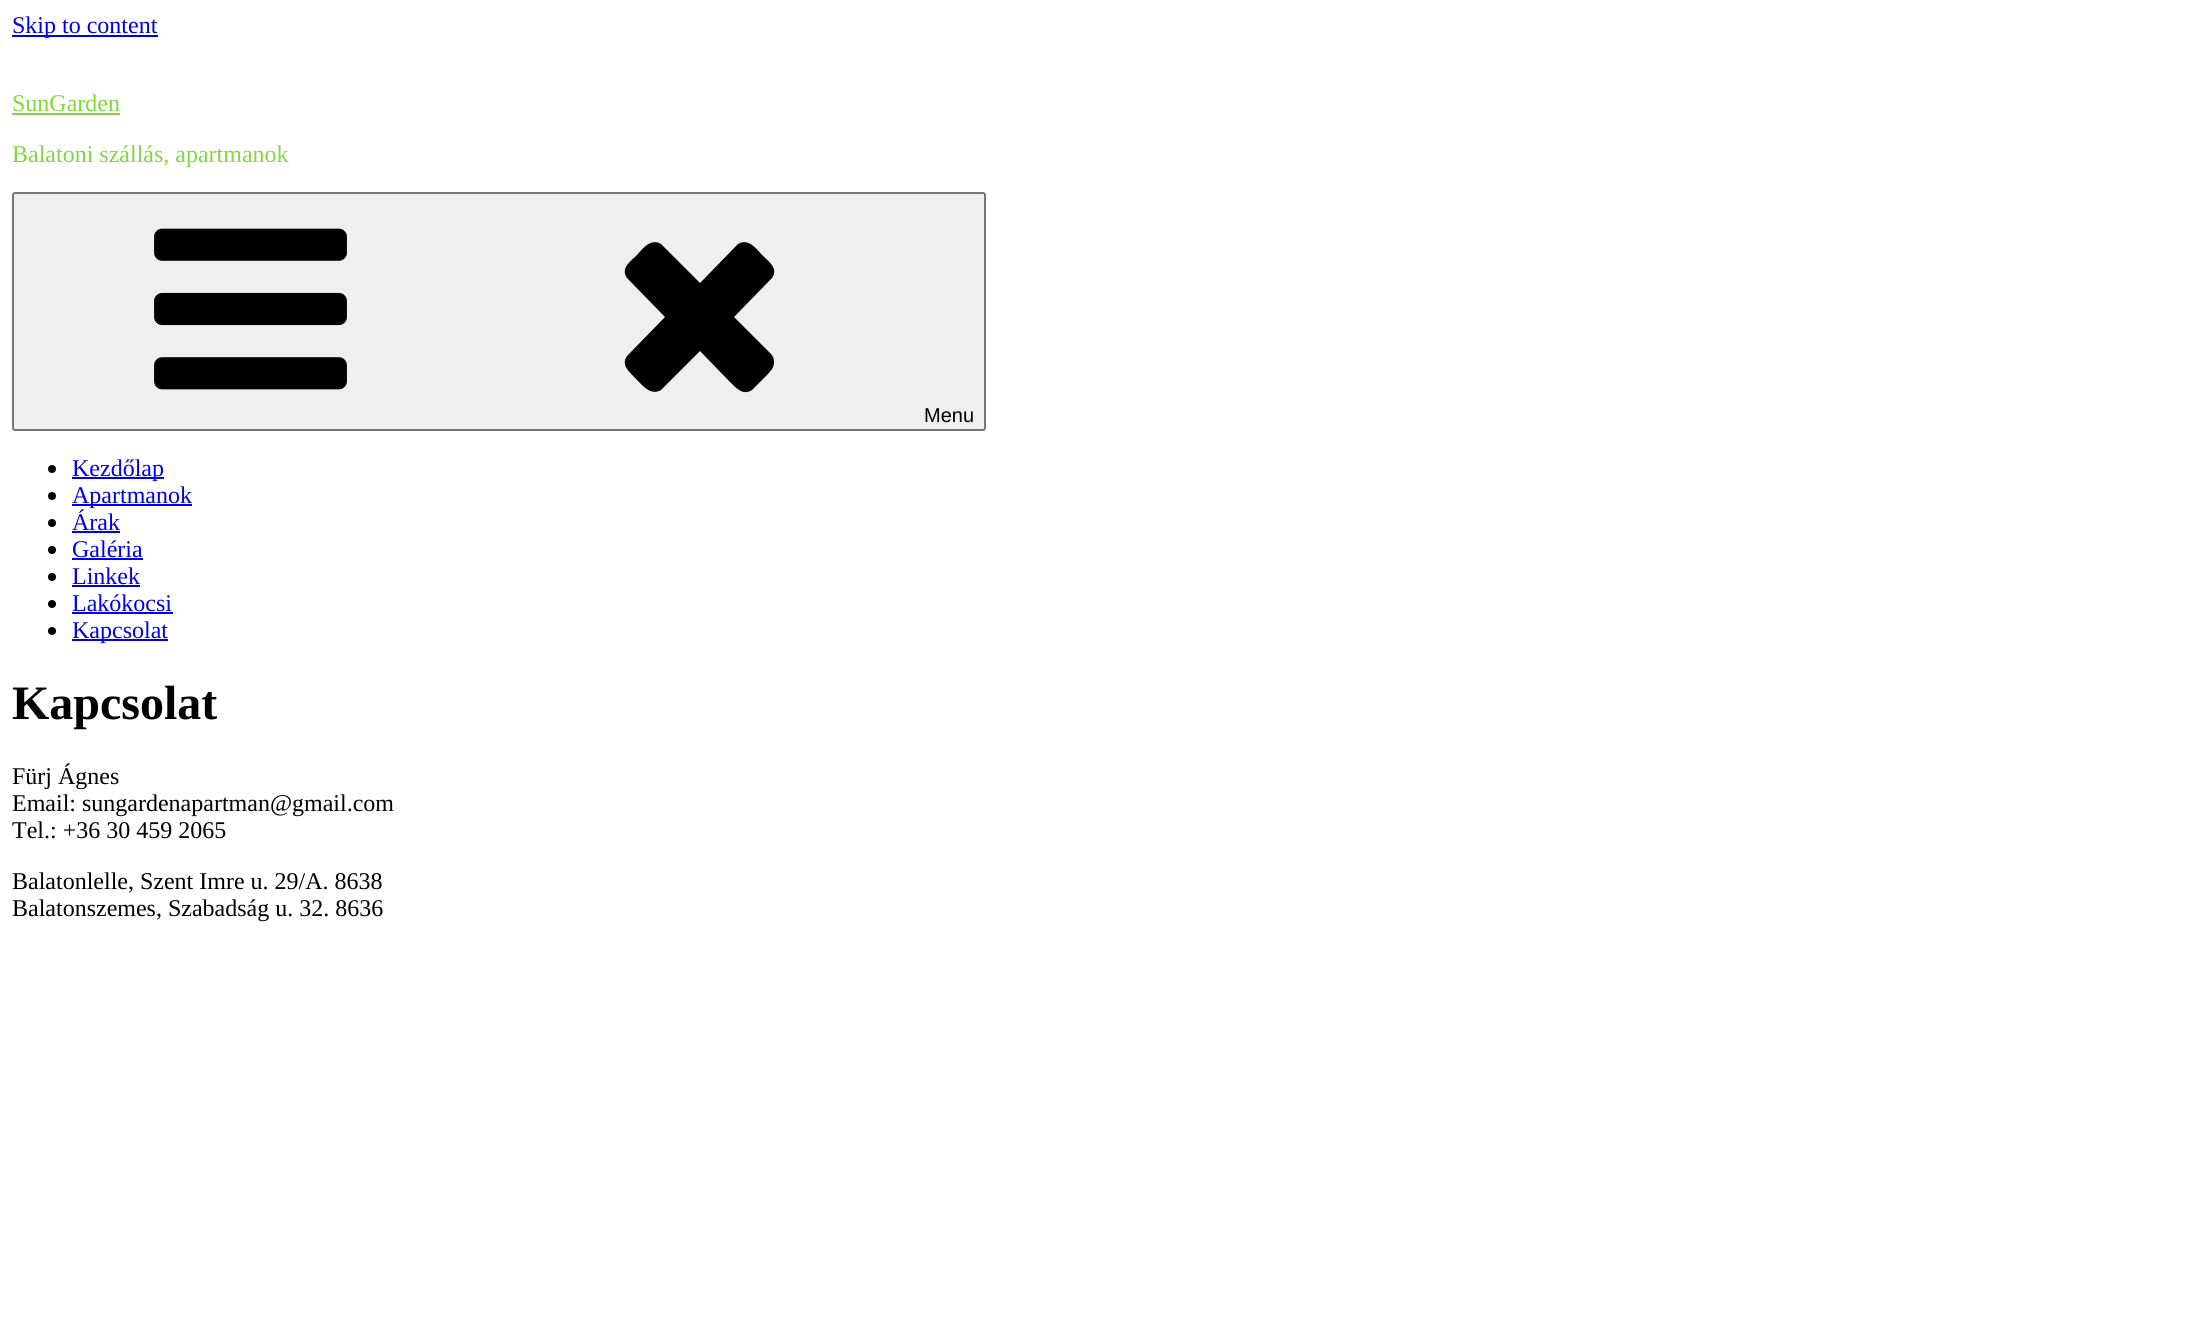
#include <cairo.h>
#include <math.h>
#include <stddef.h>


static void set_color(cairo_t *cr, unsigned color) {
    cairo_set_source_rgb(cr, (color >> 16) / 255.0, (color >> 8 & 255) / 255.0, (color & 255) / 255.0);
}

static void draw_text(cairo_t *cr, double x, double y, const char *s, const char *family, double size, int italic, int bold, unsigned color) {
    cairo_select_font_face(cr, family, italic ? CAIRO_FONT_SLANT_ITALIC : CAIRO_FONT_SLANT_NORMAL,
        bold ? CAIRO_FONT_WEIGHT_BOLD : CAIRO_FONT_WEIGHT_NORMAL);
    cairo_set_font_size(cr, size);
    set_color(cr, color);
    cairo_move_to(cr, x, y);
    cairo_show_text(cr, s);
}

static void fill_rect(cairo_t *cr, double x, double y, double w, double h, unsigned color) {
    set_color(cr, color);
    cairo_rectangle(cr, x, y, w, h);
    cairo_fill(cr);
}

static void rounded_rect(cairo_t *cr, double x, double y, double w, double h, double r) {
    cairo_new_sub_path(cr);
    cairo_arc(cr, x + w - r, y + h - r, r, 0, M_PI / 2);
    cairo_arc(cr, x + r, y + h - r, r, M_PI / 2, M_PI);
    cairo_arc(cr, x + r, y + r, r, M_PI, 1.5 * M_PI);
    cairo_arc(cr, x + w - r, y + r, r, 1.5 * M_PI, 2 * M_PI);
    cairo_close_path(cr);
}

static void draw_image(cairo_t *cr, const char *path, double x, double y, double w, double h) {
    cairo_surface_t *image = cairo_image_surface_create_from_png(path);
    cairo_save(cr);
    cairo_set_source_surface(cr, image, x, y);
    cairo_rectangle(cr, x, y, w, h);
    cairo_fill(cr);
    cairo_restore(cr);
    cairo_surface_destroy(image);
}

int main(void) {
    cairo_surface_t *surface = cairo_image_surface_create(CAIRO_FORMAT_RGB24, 2200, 1335);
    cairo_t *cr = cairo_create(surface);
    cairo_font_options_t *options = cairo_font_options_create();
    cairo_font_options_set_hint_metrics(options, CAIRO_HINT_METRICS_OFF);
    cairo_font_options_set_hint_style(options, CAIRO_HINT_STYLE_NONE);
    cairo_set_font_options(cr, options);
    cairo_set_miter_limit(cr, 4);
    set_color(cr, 0xFFFFFF);
    cairo_paint(cr);
    fill_rect(cr, 12, 35, 146, 2, 0x0000EE);
    draw_text(cr, 12, 33, "Skip to content", "Liberation Serif", 24, 0, 0, 0x0000EE);
    draw_text(cr, 12, 111, "SunGarden", "Liberation Serif", 24, 0, 0, 0x81D742);
    fill_rect(cr, 12, 113, 108, 2, 0x81D742);
    draw_text(cr, 12, 162, "Balatoni szállás, apartmanok", "Liberation Serif", 24, 0, 0, 0x81D742);
    set_color(cr, 0xEFEFEF);
    rounded_rect(cr, 13, 193, 972, 237, 2);
    cairo_fill_preserve(cr);
    set_color(cr, 0x767676);
    cairo_stroke(cr);
    draw_image(cr, "assets/img1.png", 154, 228, 193, 162);
    set_color(cr, 0x000000);
    cairo_new_path(cr);
    cairo_move_to(cr, 774, 362);
    cairo_curve_to(cr, 774, 368, 771, 370, 768, 374);
    cairo_line_to(cr, 752, 390);
    cairo_curve_to(cr, 743, 396, 736, 388, 730, 382);
    cairo_line_to(cr, 700, 351);
    cairo_line_to(cr, 661, 390);
    cairo_curve_to(cr, 651, 396, 643, 386, 637, 380);
    cairo_curve_to(cr, 631, 373, 620, 366, 627, 356);
    cairo_line_to(cr, 665, 317);
    cairo_line_to(cr, 627, 278);
    cairo_curve_to(cr, 620, 268, 631, 261, 637, 255);
    cairo_curve_to(cr, 643, 248, 651, 238, 661, 244);
    cairo_line_to(cr, 700, 283);
    cairo_line_to(cr, 738, 244);
    cairo_curve_to(cr, 748, 238, 756, 248, 762, 255);
    cairo_curve_to(cr, 768, 261, 779, 268, 772, 278);
    cairo_line_to(cr, 734, 317);
    cairo_line_to(cr, 771, 354);
    cairo_curve_to(cr, 773, 356, 774, 359, 774, 362);
    cairo_close_path(cr);
    cairo_fill(cr);
    draw_text(cr, 924, 422, "Menu", "Liberation Sans", 20, 0, 0, 0x000000);
    cairo_new_path(cr);
    cairo_arc(cr, 52, 469, 4, 0, 2 * M_PI);
    cairo_fill(cr);
    fill_rect(cr, 72, 477, 92, 2, 0x0000EE);
    draw_text(cr, 72, 476, "Kezdőlap", "Liberation Serif", 24, 0, 0, 0x0000EE);
    set_color(cr, 0x000000);
    cairo_new_path(cr);
    cairo_arc(cr, 52, 496, 4, 0, 2 * M_PI);
    cairo_fill(cr);
    fill_rect(cr, 72, 504, 120, 2, 0x0000EE);
    draw_text(cr, 72, 503, "Apartmanok", "Liberation Serif", 24, 0, 0, 0x0000EE);
    set_color(cr, 0x000000);
    cairo_new_path(cr);
    cairo_arc(cr, 52, 523, 4, 0, 2 * M_PI);
    cairo_fill(cr);
    draw_text(cr, 72, 530, "Árak", "Liberation Serif", 24, 0, 0, 0x0000EE);
    fill_rect(cr, 72, 531, 48, 2, 0x0000EE);
    set_color(cr, 0x000000);
    cairo_new_path(cr);
    cairo_arc(cr, 52, 550, 4, 0, 2 * M_PI);
    cairo_fill(cr);
    draw_text(cr, 72, 557, "Galéria", "Liberation Serif", 24, 0, 0, 0x0000EE);
    fill_rect(cr, 72, 558, 71, 2, 0x0000EE);
    set_color(cr, 0x000000);
    cairo_new_path(cr);
    cairo_arc(cr, 52, 577, 4, 0, 2 * M_PI);
    cairo_fill(cr);
    draw_text(cr, 72, 584, "Linkek", "Liberation Serif", 24, 0, 0, 0x0000EE);
    fill_rect(cr, 72, 585, 68, 2, 0x0000EE);
    set_color(cr, 0x000000);
    cairo_new_path(cr);
    cairo_arc(cr, 52, 604, 4, 0, 2 * M_PI);
    cairo_fill(cr);
    draw_text(cr, 72, 611, "Lakókocsi", "Liberation Serif", 24, 0, 0, 0x0000EE);
    fill_rect(cr, 72, 612, 101, 2, 0x0000EE);
    set_color(cr, 0x000000);
    cairo_new_path(cr);
    cairo_arc(cr, 52, 631, 4, 0, 2 * M_PI);
    cairo_fill(cr);
    fill_rect(cr, 72, 639, 96, 2, 0x0000EE);
    draw_text(cr, 72, 638, "Kapcsolat", "Liberation Serif", 24, 0, 0, 0x0000EE);
    draw_text(cr, 12, 719, "Kapcsolat", "Liberation Serif", 48, 0, 1, 0x000000);
    draw_text(cr, 12, 784, "Fürj Ágnes", "Liberation Serif", 24, 0, 0, 0x000000);
    draw_text(cr, 12, 811, "Email: sungardenapartman@gmail.com", "Liberation Serif", 24, 0, 0, 0x000000);
    draw_text(cr, 12, 838, "Tel.: +36 30 459 2065", "Liberation Serif", 24, 0, 0, 0x000000);
    draw_text(cr, 12, 889, "Balatonlelle, Szent Imre u. 29/A. 8638", "Liberation Serif", 24, 0, 0, 0x000000);
    draw_text(cr, 12, 916, "Balatonszemes, Szabadság u. 32. 8636", "Liberation Serif", 24, 0, 0, 0x000000);
    cairo_surface_write_to_png(surface, "output.png");
    cairo_font_options_destroy(options);
    cairo_destroy(cr);
    cairo_surface_destroy(surface);
    return 0;
}
